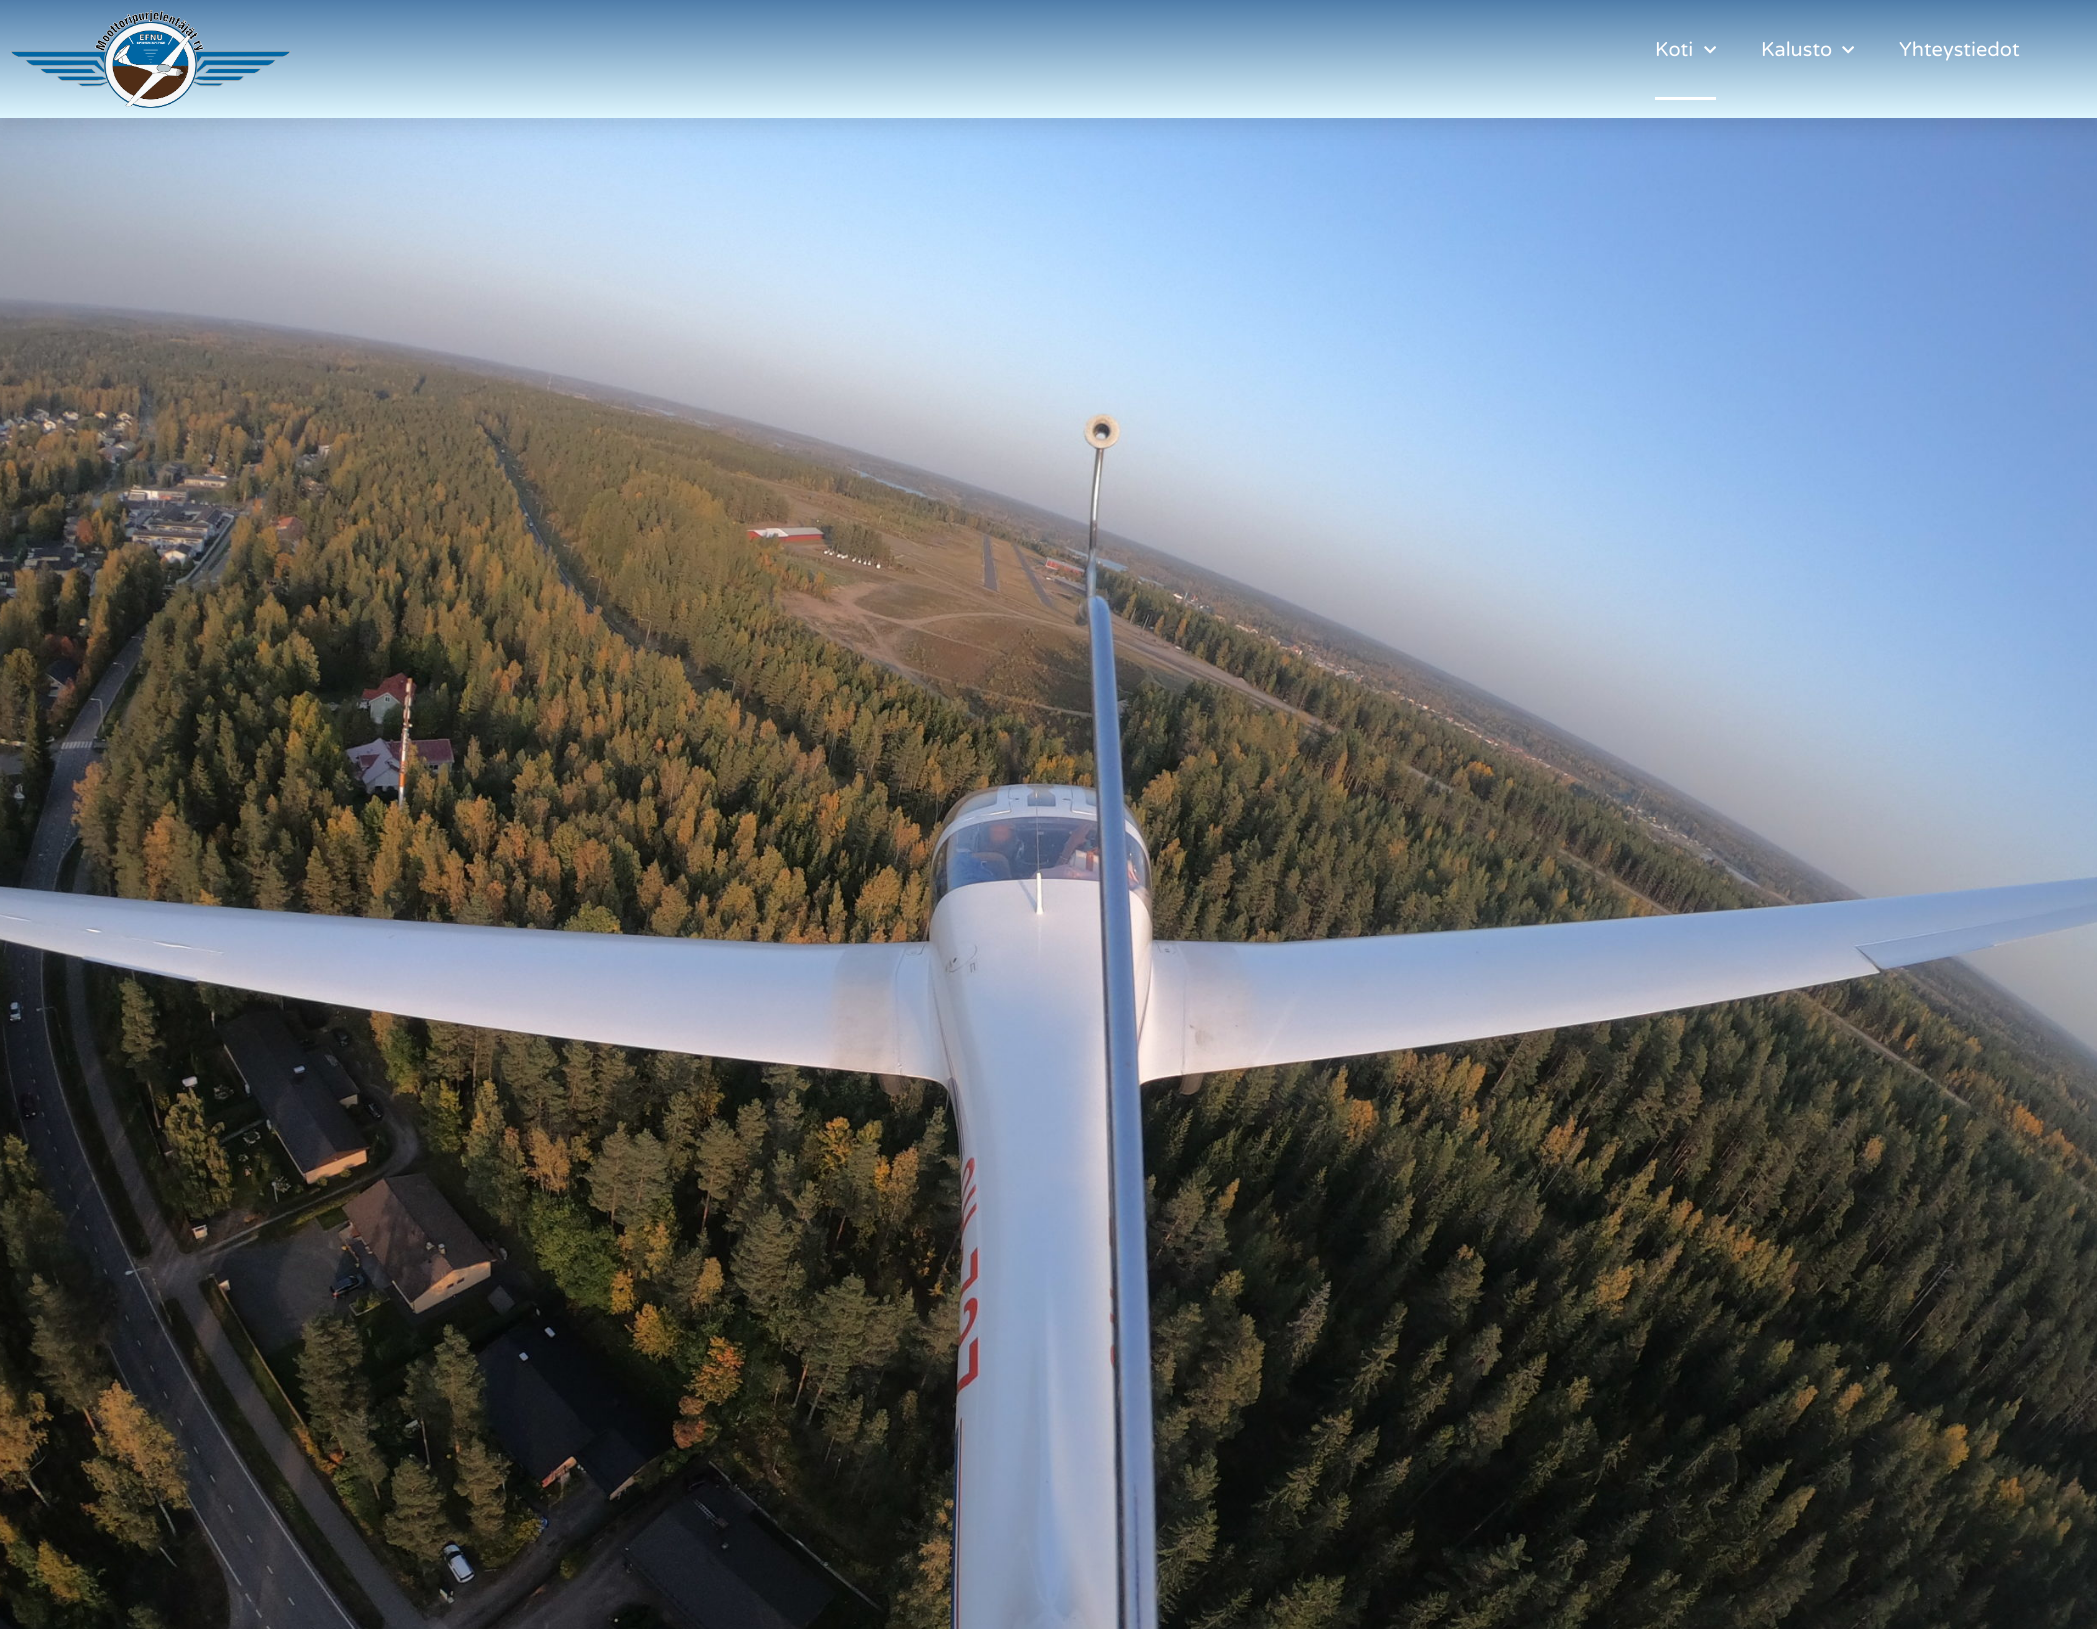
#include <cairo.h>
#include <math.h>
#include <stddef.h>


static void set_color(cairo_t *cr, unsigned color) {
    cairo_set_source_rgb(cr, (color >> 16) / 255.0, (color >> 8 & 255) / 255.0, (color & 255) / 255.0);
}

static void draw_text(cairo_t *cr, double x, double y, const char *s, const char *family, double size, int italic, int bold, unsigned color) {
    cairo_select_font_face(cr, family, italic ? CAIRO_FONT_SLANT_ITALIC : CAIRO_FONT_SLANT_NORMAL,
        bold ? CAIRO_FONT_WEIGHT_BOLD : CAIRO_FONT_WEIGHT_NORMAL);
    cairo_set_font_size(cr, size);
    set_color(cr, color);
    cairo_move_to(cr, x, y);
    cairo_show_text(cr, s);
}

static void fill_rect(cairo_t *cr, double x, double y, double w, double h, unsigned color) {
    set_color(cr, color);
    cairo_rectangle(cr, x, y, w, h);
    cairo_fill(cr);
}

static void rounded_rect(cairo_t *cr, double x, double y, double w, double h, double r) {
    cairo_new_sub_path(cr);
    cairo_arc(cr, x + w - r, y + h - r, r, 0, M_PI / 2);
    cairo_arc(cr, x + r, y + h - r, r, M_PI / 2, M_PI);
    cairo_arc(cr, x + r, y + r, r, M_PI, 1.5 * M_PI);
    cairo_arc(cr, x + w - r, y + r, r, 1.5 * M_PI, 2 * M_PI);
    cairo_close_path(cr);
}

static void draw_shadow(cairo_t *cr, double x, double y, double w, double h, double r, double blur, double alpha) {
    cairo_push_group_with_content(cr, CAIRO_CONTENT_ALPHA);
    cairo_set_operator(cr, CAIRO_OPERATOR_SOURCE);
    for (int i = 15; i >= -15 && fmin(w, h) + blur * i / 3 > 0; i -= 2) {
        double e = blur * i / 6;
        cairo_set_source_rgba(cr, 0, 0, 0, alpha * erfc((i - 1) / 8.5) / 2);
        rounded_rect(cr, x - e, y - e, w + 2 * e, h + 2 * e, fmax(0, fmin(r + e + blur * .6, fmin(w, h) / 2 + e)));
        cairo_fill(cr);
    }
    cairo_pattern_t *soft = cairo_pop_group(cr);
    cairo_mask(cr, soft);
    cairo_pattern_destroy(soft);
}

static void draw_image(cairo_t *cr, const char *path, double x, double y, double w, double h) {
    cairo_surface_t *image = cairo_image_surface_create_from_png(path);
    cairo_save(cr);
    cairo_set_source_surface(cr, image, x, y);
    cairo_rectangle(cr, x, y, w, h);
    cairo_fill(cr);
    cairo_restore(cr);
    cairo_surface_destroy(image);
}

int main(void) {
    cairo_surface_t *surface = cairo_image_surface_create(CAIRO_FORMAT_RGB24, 2097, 1629);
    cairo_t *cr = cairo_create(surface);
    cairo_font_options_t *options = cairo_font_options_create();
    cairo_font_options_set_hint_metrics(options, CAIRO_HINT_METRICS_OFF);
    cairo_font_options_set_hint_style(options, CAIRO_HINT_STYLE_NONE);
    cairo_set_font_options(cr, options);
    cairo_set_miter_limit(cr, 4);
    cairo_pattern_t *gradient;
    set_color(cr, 0xFFFFFF);
    cairo_paint(cr);
    draw_image(cr, "assets/img3.png", 0, 118, 2097, 1511);
    set_color(cr, 0x000000);
    draw_shadow(cr, 0, 10, 2097, 118, 0, 10, 0.1);
    gradient = cairo_pattern_create_linear(1049, 118, 1049, 0);
    cairo_pattern_add_color_stop_rgba(gradient, 0, 0.871, 0.965, 0.996, 1);
    cairo_pattern_add_color_stop_rgba(gradient, 1, 0.314, 0.494, 0.671, 1);
    cairo_set_source(cr, gradient);
    cairo_pattern_destroy(gradient);
    cairo_rectangle(cr, 0, 0, 2097, 118);
    cairo_fill(cr);
    draw_image(cr, "assets/img1.png", 10, 10, 281, 98);
    draw_text(cr, 1655, 56, "Koti", "Varela Round", 20, 0, 0, 0xFFFFFF);
    draw_image(cr, "assets/img2.png", 1704, 46, 12, 8);
    fill_rect(cr, 1655, 97, 61, 3, 0xFFFFFF);
    draw_text(cr, 1761, 56, "Kalusto", "Varela Round", 20, 0, 0, 0xFFFFFF);
    draw_image(cr, "assets/img2.png", 1842, 46, 12, 8);
    draw_text(cr, 1899, 56, "Yhteystiedot", "Varela Round", 20, 0, 0, 0xFFFFFF);
    cairo_surface_write_to_png(surface, "output.png");
    cairo_font_options_destroy(options);
    cairo_destroy(cr);
    cairo_surface_destroy(surface);
    return 0;
}
